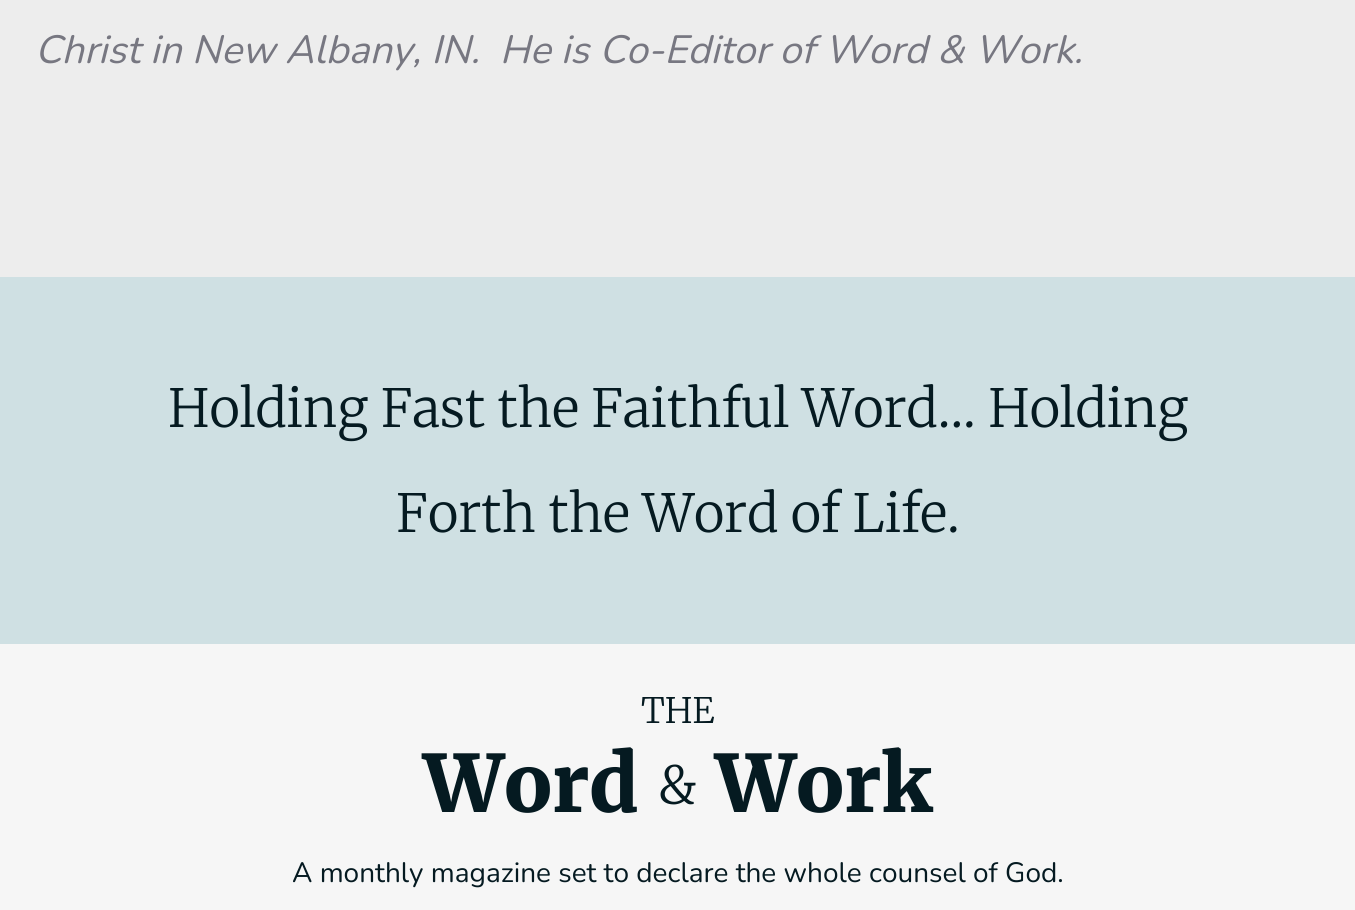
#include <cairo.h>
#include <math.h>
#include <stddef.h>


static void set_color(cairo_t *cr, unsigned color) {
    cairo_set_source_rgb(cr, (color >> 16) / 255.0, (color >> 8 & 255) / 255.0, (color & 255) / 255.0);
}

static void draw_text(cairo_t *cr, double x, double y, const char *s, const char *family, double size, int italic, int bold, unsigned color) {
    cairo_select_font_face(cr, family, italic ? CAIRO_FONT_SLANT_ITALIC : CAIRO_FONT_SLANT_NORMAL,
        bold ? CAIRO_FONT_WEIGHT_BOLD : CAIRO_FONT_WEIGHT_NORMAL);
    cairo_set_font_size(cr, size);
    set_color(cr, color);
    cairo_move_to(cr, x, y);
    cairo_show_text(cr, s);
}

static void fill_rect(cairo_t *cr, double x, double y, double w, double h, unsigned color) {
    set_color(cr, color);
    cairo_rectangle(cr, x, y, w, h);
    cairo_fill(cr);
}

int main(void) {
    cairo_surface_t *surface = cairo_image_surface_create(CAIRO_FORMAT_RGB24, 1355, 910);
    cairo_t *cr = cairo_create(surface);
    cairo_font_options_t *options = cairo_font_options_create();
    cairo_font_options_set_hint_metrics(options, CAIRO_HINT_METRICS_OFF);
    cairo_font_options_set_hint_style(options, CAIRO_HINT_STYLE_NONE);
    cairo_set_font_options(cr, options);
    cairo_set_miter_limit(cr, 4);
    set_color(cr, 0xEDEDED);
    cairo_paint(cr);
    draw_text(cr, 35, 63, "Christ in New Albany, IN.  He is Co-Editor of Word & Work.", "Nunito ExtraLight", 39.4, 1, 0, 0x777781);
    fill_rect(cr, 0, 277, 1355, 367, 0xCFE0E3);
    draw_text(cr, 168, 427, "Holding Fast the Faithful Word... Holding", "Merriweather Light", 52.5, 0, 0, 0x051A21);
    draw_text(cr, 396, 532, "Forth the Word of Life.", "Merriweather Light", 52.5, 0, 0, 0x051A21);
    fill_rect(cr, 0, 644, 1355, 266, 0xF6F6F6);
    draw_text(cr, 641, 723, "THE", "Merriweather Light", 35, 0, 0, 0x051A21);
    draw_text(cr, 423, 812, "Word", "Merriweather Black", 79, 0, 0, 0x051A21);
    draw_text(cr, 657, 804, "&", "Merriweather Light", 52.5, 0, 0, 0x051A21);
    draw_text(cr, 715, 812, "Work", "Merriweather Black", 79, 0, 0, 0x051A21);
    draw_text(cr, 292, 882, "A monthly magazine set to declare the whole counsel of God.", "Nunito ExtraLight", 28, 0, 0, 0x051A21);
    cairo_surface_write_to_png(surface, "output.png");
    cairo_font_options_destroy(options);
    cairo_destroy(cr);
    cairo_surface_destroy(surface);
    return 0;
}
